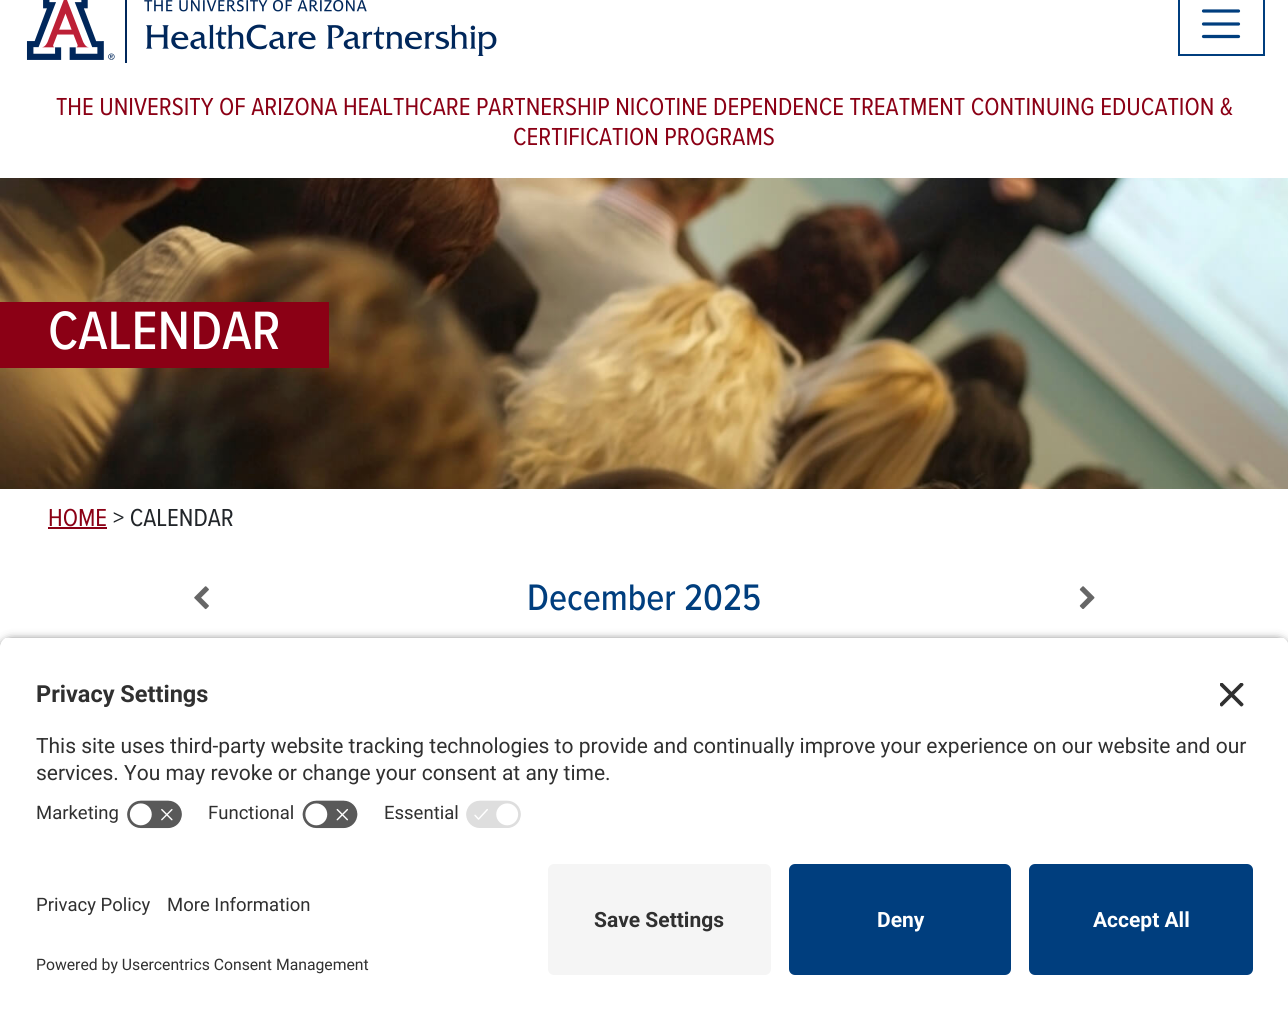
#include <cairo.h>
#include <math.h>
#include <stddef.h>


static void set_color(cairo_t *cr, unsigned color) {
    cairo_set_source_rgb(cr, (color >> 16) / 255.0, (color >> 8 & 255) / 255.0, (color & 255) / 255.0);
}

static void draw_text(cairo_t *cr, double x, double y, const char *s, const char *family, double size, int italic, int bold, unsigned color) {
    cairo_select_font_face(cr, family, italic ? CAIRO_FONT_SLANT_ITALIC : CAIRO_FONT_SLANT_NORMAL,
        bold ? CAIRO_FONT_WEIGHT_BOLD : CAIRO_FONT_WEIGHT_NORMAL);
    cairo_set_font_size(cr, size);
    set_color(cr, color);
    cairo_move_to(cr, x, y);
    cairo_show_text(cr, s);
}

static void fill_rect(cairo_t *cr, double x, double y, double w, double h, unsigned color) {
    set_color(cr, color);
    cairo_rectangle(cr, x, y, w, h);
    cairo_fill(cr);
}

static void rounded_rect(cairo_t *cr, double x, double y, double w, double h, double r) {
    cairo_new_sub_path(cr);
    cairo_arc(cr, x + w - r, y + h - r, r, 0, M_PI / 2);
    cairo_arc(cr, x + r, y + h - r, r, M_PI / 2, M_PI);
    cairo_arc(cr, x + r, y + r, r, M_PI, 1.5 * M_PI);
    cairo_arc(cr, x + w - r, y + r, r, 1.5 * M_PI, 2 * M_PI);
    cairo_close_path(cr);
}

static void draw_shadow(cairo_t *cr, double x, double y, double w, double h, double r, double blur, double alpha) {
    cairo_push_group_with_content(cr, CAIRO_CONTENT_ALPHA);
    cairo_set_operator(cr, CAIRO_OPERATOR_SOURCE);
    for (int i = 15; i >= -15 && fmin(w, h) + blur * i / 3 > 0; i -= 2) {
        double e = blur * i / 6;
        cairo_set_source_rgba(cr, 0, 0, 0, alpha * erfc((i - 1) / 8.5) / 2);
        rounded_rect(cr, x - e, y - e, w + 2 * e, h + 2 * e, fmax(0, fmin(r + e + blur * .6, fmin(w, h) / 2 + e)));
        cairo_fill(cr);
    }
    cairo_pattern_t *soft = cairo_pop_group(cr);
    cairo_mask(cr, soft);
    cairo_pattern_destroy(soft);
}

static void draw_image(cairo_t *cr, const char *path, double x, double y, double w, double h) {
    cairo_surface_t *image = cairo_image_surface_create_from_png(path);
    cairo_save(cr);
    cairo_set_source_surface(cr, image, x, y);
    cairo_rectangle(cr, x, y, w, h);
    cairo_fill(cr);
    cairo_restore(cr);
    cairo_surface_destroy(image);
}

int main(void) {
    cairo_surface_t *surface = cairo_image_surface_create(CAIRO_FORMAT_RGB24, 1288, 1011);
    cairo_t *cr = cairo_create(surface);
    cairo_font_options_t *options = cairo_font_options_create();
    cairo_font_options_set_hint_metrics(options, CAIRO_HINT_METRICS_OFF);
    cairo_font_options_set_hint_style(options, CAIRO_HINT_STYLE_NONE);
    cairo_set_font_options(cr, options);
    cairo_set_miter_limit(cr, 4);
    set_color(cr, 0xFFFFFF);
    cairo_paint(cr);
    draw_image(cr, "assets/img1.png", 26, 0, 471, 63);
    cairo_rectangle(cr, 1179, -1, 85, 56);
    set_color(cr, 0x003E7E);
    cairo_stroke(cr);
    cairo_new_path(cr);
    cairo_move_to(cr, 1203.5, 11);
    cairo_line_to(cr, 1238.5, 11);
    cairo_move_to(cr, 1203.5, 24);
    cairo_line_to(cr, 1238.5, 24);
    cairo_move_to(cr, 1203.5, 36.5);
    cairo_line_to(cr, 1238.5, 36.5);
    cairo_set_line_width(cr, 3.2);
    cairo_set_line_cap(cr, CAIRO_LINE_CAP_ROUND);
    cairo_stroke(cr);
    draw_text(cr, 56, 115, "THE UNIVERSITY OF ARIZONA HEALTHCARE PARTNERSHIP NICOTINE DEPENDENCE TREATMENT CONTINUING EDUCATION &", "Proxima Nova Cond", 25.5, 0, 0, 0x8B0015);
    draw_text(cr, 513, 145, "CERTIFICATION PROGRAMS", "Proxima Nova Cond", 25.5, 0, 0, 0x8B0015);
    draw_image(cr, "assets/img2.png", 0, 178, 1288, 311);
    fill_rect(cr, 0, 302, 329, 66, 0x8B0015);
    draw_text(cr, 48, 349, "CALENDAR", "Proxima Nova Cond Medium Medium", 56, 0, 0, 0xFFFFFF);
    draw_text(cr, 48, 526, "HOME", "Proxima Nova Cond", 25.5, 0, 0, 0x8B0015);
    fill_rect(cr, 48, 527, 59, 2, 0x8B0015);
    draw_text(cr, 113, 526, "> CALENDAR", "Proxima Nova Cond", 25.5, 0, 0, 0x212529);
    draw_image(cr, "assets/img3.png", 194, 586, 15, 24);
    draw_text(cr, 527, 610, "December 2025", "Proxima Nova Cond Medium Medium", 38.25, 0, 0, 0x003E7E);
    draw_image(cr, "assets/img4.png", 1079, 586, 16, 23);
    set_color(cr, 0x000000);
    draw_shadow(cr, 0, 641, 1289, 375, 12, 5, 0.8);
    cairo_save(cr);
    cairo_new_path(cr);
    cairo_move_to(cr, 12, 636);
    cairo_line_to(cr, 1277, 636);
    cairo_curve_to(cr, 1283.5, 636, 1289, 641.5, 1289, 648);
    cairo_line_to(cr, 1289, 852);
    cairo_line_to(cr, 0, 852);
    cairo_line_to(cr, 0, 648);
    cairo_curve_to(cr, 0, 641.5, 5.5, 636, 12, 636);
    cairo_close_path(cr);
    cairo_clip(cr);
    fill_rect(cr, 0, 638, 1288, 214, 0xFFFFFF);
    fill_rect(cr, 0, 638, 1288, 154, 0xFFFFFF);
    cairo_restore(cr);
    draw_text(cr, 36, 702, "Privacy Settings", "Roboto", 23.5, 0, 1, 0x303030);
    draw_image(cr, "assets/img5.png", 1220, 683, 24, 24);
    draw_text(cr, 36, 753, "This site uses third-party website tracking technologies to provide and continually improve your experience on our website and our", "Roboto", 21, 0, 0, 0x303030);
    draw_text(cr, 36, 780, "services. You may revoke or change your consent at any time.", "Roboto", 21, 0, 0, 0x303030);
    draw_text(cr, 36, 819, "Marketing", "Roboto", 18.5, 0, 0, 0x303030);
    draw_image(cr, "assets/img6.png", 127, 800, 55, 29);
    draw_text(cr, 208, 819, "Functional", "Roboto", 18.5, 0, 0, 0x303030);
    draw_image(cr, "assets/img7.png", 302, 800, 56, 29);
    draw_text(cr, 384, 819, "Essential", "Roboto", 18.5, 0, 0, 0x303030);
    draw_image(cr, "assets/img8.png", 466, 800, 55, 28);
    fill_rect(cr, 0, 852, 1288, 159, 0xFFFFFF);
    draw_text(cr, 36, 911, "Privacy Policy", "Roboto", 18.5, 0, 0, 0x303030);
    draw_text(cr, 167, 911, "More Information", "Roboto", 18.5, 0, 0, 0x303030);
    draw_text(cr, 36, 970, "Powered by Usercentrics Consent Management", "Roboto", 15.75, 0, 0, 0x303030);
    set_color(cr, 0xF5F5F5);
    rounded_rect(cr, 548, 864, 223, 111, 6);
    cairo_fill(cr);
    draw_text(cr, 594, 927, "Save Settings", "Roboto", 21, 0, 1, 0x303030);
    set_color(cr, 0x003E7E);
    rounded_rect(cr, 789, 864, 222, 111, 6);
    cairo_fill(cr);
    draw_text(cr, 877, 927, "Deny", "Roboto", 21, 0, 1, 0xFFFFFF);
    set_color(cr, 0x003E7E);
    rounded_rect(cr, 1029, 864, 224, 111, 6);
    cairo_fill(cr);
    draw_text(cr, 1093, 927, "Accept All", "Roboto", 21, 0, 1, 0xFFFFFF);
    cairo_surface_write_to_png(surface, "output.png");
    cairo_font_options_destroy(options);
    cairo_destroy(cr);
    cairo_surface_destroy(surface);
    return 0;
}
